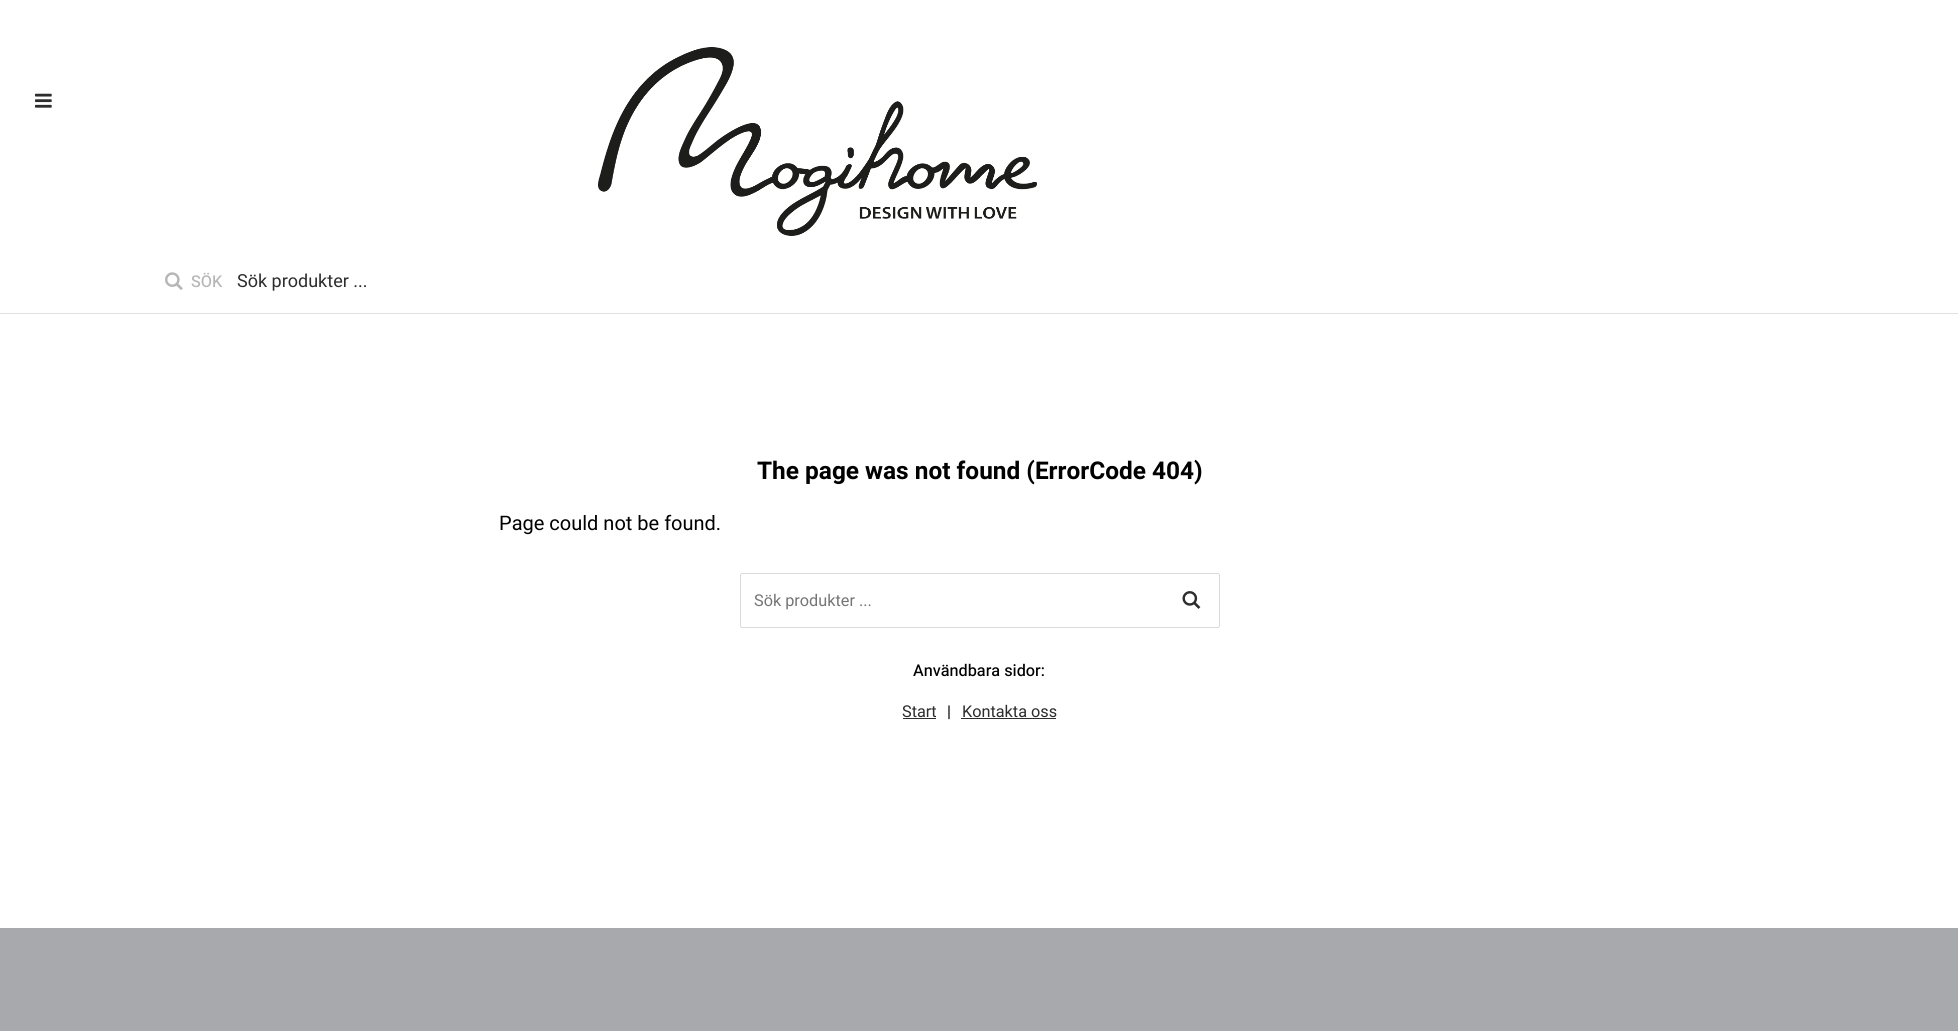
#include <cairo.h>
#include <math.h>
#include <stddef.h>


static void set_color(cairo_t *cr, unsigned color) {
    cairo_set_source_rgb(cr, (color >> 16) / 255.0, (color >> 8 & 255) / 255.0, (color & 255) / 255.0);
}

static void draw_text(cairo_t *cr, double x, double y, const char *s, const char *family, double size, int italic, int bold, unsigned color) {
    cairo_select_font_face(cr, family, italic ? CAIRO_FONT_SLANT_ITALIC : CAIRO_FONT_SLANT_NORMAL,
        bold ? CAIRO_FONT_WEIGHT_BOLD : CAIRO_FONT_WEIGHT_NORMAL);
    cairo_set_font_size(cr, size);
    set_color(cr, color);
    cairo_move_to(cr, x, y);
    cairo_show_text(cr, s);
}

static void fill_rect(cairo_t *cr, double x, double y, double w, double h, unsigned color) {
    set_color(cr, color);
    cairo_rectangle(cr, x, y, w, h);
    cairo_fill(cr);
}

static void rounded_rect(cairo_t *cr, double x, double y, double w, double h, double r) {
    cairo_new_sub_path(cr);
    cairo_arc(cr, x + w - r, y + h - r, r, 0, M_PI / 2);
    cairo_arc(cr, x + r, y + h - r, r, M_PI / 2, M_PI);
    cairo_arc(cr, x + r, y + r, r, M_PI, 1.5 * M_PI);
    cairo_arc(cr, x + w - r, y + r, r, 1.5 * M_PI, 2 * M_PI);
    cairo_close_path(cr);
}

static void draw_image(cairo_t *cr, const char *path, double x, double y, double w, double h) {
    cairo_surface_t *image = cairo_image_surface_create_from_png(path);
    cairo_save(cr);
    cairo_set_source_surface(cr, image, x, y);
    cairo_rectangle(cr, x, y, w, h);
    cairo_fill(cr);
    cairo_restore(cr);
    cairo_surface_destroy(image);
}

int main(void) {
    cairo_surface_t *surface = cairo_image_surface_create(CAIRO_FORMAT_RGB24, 1958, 1031);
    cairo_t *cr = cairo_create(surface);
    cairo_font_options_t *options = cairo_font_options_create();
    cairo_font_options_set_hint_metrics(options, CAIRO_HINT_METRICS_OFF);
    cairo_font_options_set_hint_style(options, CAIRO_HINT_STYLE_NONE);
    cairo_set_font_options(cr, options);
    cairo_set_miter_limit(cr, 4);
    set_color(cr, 0xFFFFFF);
    cairo_paint(cr);
    draw_image(cr, "assets/img1.png", 35, 93, 17, 15);
    draw_image(cr, "assets/img2.png", 598, 47, 439, 189);
    fill_rect(cr, 0, 313, 1958, 1, 0xE1E1E1);
    draw_image(cr, "assets/img3.png", 165, 272, 18, 18);
    draw_text(cr, 191, 287, "SÖK", "Heebo Medium", 16.25, 0, 0, 0xB6B6B6);
    draw_text(cr, 237, 287, "Sök produkter ...", "Heebo", 18, 0, 0, 0x2D2D2D);
    draw_text(cr, 757, 479, "The page was not found (ErrorCode 404)", "Heebo", 24.4, 0, 1, 0x000000);
    draw_text(cr, 499, 530, "Page could not be found.", "Heebo", 20, 0, 0, 0x000000);
    rounded_rect(cr, 740.5, 573.5, 479, 54, 2);
    set_color(cr, 0xDADADA);
    cairo_set_line_width(cr, 1);
    cairo_stroke(cr);
    draw_text(cr, 754, 606, "Sök produkter ...", "Heebo", 16.25, 0, 0, 0x757575);
    draw_image(cr, "assets/img4.png", 1182, 591, 19, 18);
    draw_text(cr, 913, 676, "Användbara sidor:", "Heebo Medium", 16.25, 0, 0, 0x000000);
    draw_text(cr, 902, 717, "Start", "Heebo", 16.25, 0, 0, 0x2D2D2D);
    fill_rect(cr, 903, 718, 33, 1, 0x2D2D2D);
    draw_text(cr, 947, 717, "|", "Heebo", 16.25, 0, 0, 0x000000);
    draw_text(cr, 962, 717, "Kontakta oss", "Heebo", 16.25, 0, 0, 0x2D2D2D);
    fill_rect(cr, 961, 718, 95, 1, 0x2D2D2D);
    fill_rect(cr, 0, 928, 1958, 103, 0xA8A9AC);
    cairo_surface_write_to_png(surface, "output.png");
    cairo_font_options_destroy(options);
    cairo_destroy(cr);
    cairo_surface_destroy(surface);
    return 0;
}
